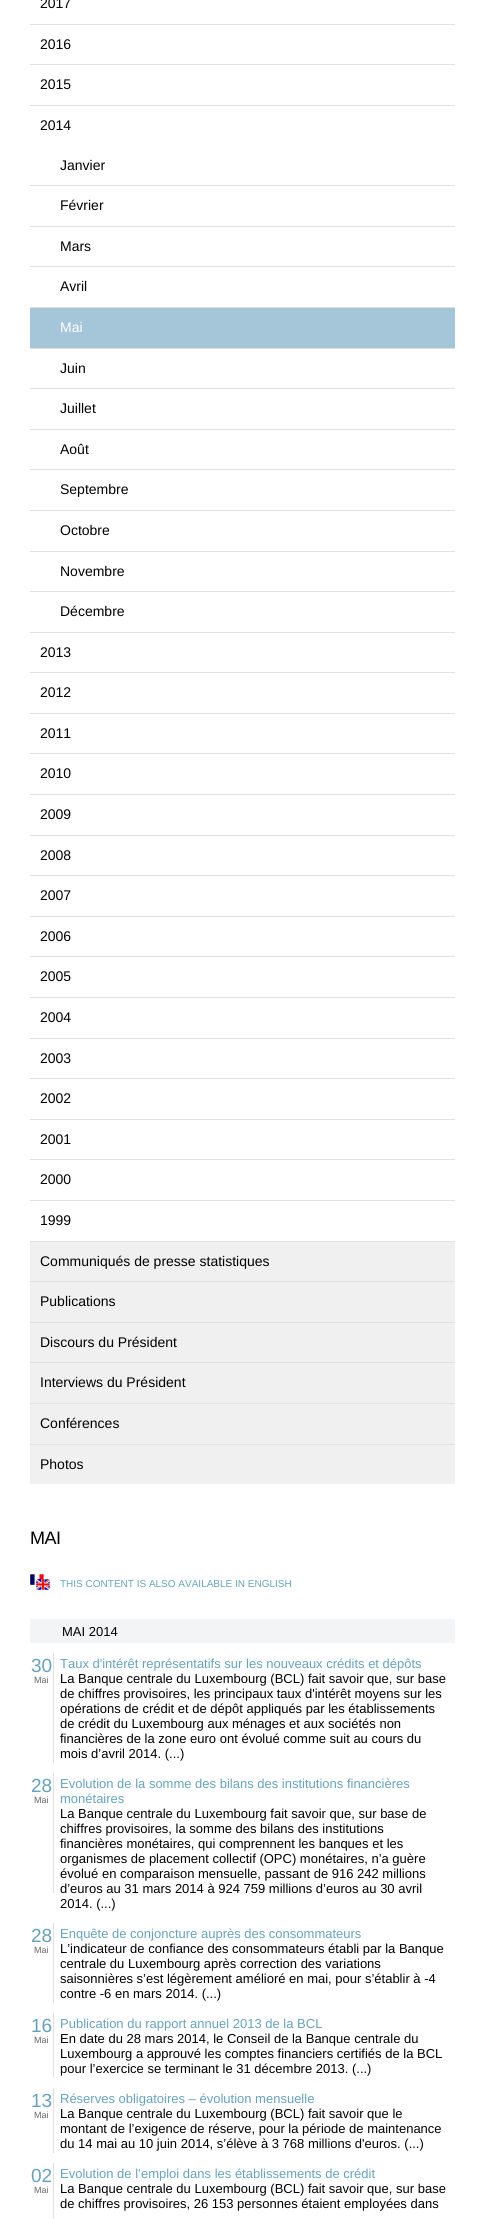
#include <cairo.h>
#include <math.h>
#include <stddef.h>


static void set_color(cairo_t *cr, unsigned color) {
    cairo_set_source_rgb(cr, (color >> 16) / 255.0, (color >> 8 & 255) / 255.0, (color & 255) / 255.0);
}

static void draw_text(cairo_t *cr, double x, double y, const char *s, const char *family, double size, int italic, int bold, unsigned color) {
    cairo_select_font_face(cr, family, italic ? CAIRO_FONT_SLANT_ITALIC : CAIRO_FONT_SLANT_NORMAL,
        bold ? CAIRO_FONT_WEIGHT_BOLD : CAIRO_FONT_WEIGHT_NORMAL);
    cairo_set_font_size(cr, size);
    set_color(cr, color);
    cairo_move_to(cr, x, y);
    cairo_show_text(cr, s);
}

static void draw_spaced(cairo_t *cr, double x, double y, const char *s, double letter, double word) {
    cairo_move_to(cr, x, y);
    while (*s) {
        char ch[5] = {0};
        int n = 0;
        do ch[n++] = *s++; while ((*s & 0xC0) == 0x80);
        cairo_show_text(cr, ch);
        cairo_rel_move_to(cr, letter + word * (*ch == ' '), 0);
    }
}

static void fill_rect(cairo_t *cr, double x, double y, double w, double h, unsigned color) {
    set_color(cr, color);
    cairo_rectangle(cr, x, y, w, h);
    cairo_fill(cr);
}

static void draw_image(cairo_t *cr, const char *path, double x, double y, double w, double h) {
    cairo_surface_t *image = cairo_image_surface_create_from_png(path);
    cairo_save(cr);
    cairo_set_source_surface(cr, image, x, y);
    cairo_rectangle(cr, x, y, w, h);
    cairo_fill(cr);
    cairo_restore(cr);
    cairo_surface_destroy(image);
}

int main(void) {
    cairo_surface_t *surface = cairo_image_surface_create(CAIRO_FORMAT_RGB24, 485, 2219);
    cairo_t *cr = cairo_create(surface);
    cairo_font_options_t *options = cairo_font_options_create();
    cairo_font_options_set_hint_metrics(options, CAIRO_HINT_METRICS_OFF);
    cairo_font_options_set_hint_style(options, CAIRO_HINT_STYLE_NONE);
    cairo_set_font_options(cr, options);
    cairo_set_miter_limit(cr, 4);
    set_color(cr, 0xFFFFFF);
    cairo_paint(cr);
    fill_rect(cr, 30, 1241, 425, 1, 0xE1E1E1);
    fill_rect(cr, 30, 24, 425, 1, 0xE1E1E1);
    draw_text(cr, 40, 8, "2017", "Liberation Sans", 14, 0, 0, 0x000000);
    fill_rect(cr, 30, 64, 425, 1, 0xE1E1E1);
    draw_text(cr, 40, 49, "2016", "Liberation Sans", 14, 0, 0, 0x000000);
    fill_rect(cr, 30, 105, 425, 1, 0xE1E1E1);
    draw_text(cr, 40, 89, "2015", "Liberation Sans", 14, 0, 0, 0x000000);
    fill_rect(cr, 30, 632, 425, 1, 0xE1E1E1);
    draw_text(cr, 40, 130, "2014", "Liberation Sans", 14, 0, 0, 0x000000);
    fill_rect(cr, 30, 185, 425, 1, 0xE1E1E1);
    draw_text(cr, 60, 170, "Janvier", "Liberation Sans", 14, 0, 0, 0x000000);
    fill_rect(cr, 30, 226, 425, 1, 0xE1E1E1);
    draw_text(cr, 60, 210, "Février", "Liberation Sans", 14, 0, 0, 0x000000);
    fill_rect(cr, 30, 266, 425, 1, 0xE1E1E1);
    draw_text(cr, 60, 251, "Mars", "Liberation Sans", 14, 0, 0, 0x000000);
    fill_rect(cr, 30, 307, 425, 1, 0xE1E1E1);
    draw_text(cr, 60, 291, "Avril", "Liberation Sans", 14, 0, 0, 0x000000);
    fill_rect(cr, 30, 348, 425, 1, 0xE1E1E1);
    fill_rect(cr, 30, 308, 425, 40, 0xA5C6D9);
    draw_text(cr, 60, 332, "Mai", "Liberation Sans", 14, 0, 0, 0xFFFFFF);
    fill_rect(cr, 30, 388, 425, 1, 0xE1E1E1);
    draw_text(cr, 60, 373, "Juin", "Liberation Sans", 14, 0, 0, 0x000000);
    fill_rect(cr, 30, 429, 425, 1, 0xE1E1E1);
    draw_text(cr, 60, 413, "Juillet", "Liberation Sans", 14, 0, 0, 0x000000);
    fill_rect(cr, 30, 469, 425, 1, 0xE1E1E1);
    draw_text(cr, 60, 454, "Août", "Liberation Sans", 14, 0, 0, 0x000000);
    fill_rect(cr, 30, 510, 425, 1, 0xE1E1E1);
    draw_text(cr, 60, 494, "Septembre", "Liberation Sans", 14, 0, 0, 0x000000);
    fill_rect(cr, 30, 551, 425, 1, 0xE1E1E1);
    draw_text(cr, 60, 535, "Octobre", "Liberation Sans", 14, 0, 0, 0x000000);
    fill_rect(cr, 30, 591, 425, 1, 0xE1E1E1);
    draw_text(cr, 60, 576, "Novembre", "Liberation Sans", 14, 0, 0, 0x000000);
    draw_text(cr, 60, 616, "Décembre", "Liberation Sans", 14, 0, 0, 0x000000);
    fill_rect(cr, 30, 672, 425, 1, 0xE1E1E1);
    draw_text(cr, 40, 657, "2013", "Liberation Sans", 14, 0, 0, 0x000000);
    fill_rect(cr, 30, 713, 425, 1, 0xE1E1E1);
    draw_text(cr, 40, 697, "2012", "Liberation Sans", 14, 0, 0, 0x000000);
    fill_rect(cr, 30, 753, 425, 1, 0xE1E1E1);
    draw_text(cr, 40, 738, "2011", "Liberation Sans", 14, 0, 0, 0x000000);
    fill_rect(cr, 30, 794, 425, 1, 0xE1E1E1);
    draw_text(cr, 40, 778, "2010", "Liberation Sans", 14, 0, 0, 0x000000);
    fill_rect(cr, 30, 835, 425, 1, 0xE1E1E1);
    draw_text(cr, 40, 819, "2009", "Liberation Sans", 14, 0, 0, 0x000000);
    fill_rect(cr, 30, 875, 425, 1, 0xE1E1E1);
    draw_text(cr, 40, 860, "2008", "Liberation Sans", 14, 0, 0, 0x000000);
    fill_rect(cr, 30, 916, 425, 1, 0xE1E1E1);
    draw_text(cr, 40, 900, "2007", "Liberation Sans", 14, 0, 0, 0x000000);
    fill_rect(cr, 30, 956, 425, 1, 0xE1E1E1);
    draw_text(cr, 40, 941, "2006", "Liberation Sans", 14, 0, 0, 0x000000);
    fill_rect(cr, 30, 997, 425, 1, 0xE1E1E1);
    draw_text(cr, 40, 981, "2005", "Liberation Sans", 14, 0, 0, 0x000000);
    fill_rect(cr, 30, 1038, 425, 1, 0xE1E1E1);
    draw_text(cr, 40, 1022, "2004", "Liberation Sans", 14, 0, 0, 0x000000);
    fill_rect(cr, 30, 1078, 425, 1, 0xE1E1E1);
    draw_text(cr, 40, 1063, "2003", "Liberation Sans", 14, 0, 0, 0x000000);
    fill_rect(cr, 30, 1119, 425, 1, 0xE1E1E1);
    draw_text(cr, 40, 1103, "2002", "Liberation Sans", 14, 0, 0, 0x000000);
    fill_rect(cr, 30, 1159, 425, 1, 0xE1E1E1);
    draw_text(cr, 40, 1144, "2001", "Liberation Sans", 14, 0, 0, 0x000000);
    fill_rect(cr, 30, 1200, 425, 1, 0xE1E1E1);
    draw_text(cr, 40, 1184, "2000", "Liberation Sans", 14, 0, 0, 0x000000);
    draw_text(cr, 40, 1225, "1999", "Liberation Sans", 14, 0, 0, 0x000000);
    fill_rect(cr, 30, 1242, 425, 39, 0xF0F0F0);
    fill_rect(cr, 30, 1281, 425, 1, 0xE1E1E1);
    draw_text(cr, 40, 1266, "Communiqués de presse statistiques", "Liberation Sans", 14, 0, 0, 0x000000);
    fill_rect(cr, 30, 1282, 425, 40, 0xF0F0F0);
    fill_rect(cr, 30, 1322, 425, 1, 0xE1E1E1);
    draw_text(cr, 40, 1306, "Publications", "Liberation Sans", 14, 0, 0, 0x000000);
    fill_rect(cr, 30, 1323, 425, 39, 0xF0F0F0);
    fill_rect(cr, 30, 1362, 425, 1, 0xE1E1E1);
    draw_text(cr, 40, 1347, "Discours du Président", "Liberation Sans", 14, 0, 0, 0x000000);
    fill_rect(cr, 30, 1363, 425, 40, 0xF0F0F0);
    fill_rect(cr, 30, 1403, 425, 1, 0xE1E1E1);
    draw_text(cr, 40, 1387, "Interviews du Président", "Liberation Sans", 14, 0, 0, 0x000000);
    fill_rect(cr, 30, 1404, 425, 40, 0xF0F0F0);
    fill_rect(cr, 30, 1444, 425, 1, 0xE1E1E1);
    draw_text(cr, 40, 1428, "Conférences", "Liberation Sans", 14, 0, 0, 0x000000);
    fill_rect(cr, 30, 1445, 425, 39, 0xF0F0F0);
    draw_text(cr, 40, 1469, "Photos", "Liberation Sans", 14, 0, 0, 0x000000);
    cairo_set_font_size(cr, 18);
    draw_spaced(cr, 30, 1544, "MAI", -0.5, 0);
    draw_image(cr, "assets/img1.png", 30, 1574, 20, 16);
    draw_text(cr, 60, 1587, "THIS CONTENT IS ALSO AVAILABLE IN ENGLISH", "Liberation Sans", 10, 0, 0, 0x66A2C0);
    fill_rect(cr, 30, 1619, 425, 24, 0xF3F4F6);
    draw_text(cr, 62, 1636, "MAI 2014", "Liberation Sans", 13, 0, 0, 0x000000);
    fill_rect(cr, 53, 1653, 1, 110, 0xE1E1E1);
    draw_text(cr, 31, 1672, "30", "Liberation Sans", 19, 0, 0, 0x66A2C0);
    draw_text(cr, 34, 1683, "Mai", "Liberation Sans", 9, 0, 0, 0x666666);
    draw_text(cr, 60, 1668, "Taux d'intérêt représentatifs sur les nouveaux crédits et dépôts", "Liberation Sans", 13, 0, 0, 0x66A2C0);
    draw_text(cr, 60, 1683, "La Banque centrale du Luxembourg (BCL) fait savoir que, sur base", "Liberation Sans", 13, 0, 0, 0x000000);
    draw_text(cr, 60, 1698, "de chiffres provisoires, les principaux taux d'intérêt moyens sur les", "Liberation Sans", 13, 0, 0, 0x000000);
    draw_text(cr, 60, 1713, "opérations de crédit et de dépôt appliqués par les établissements", "Liberation Sans", 13, 0, 0, 0x000000);
    draw_text(cr, 60, 1728, "de crédit du Luxembourg aux ménages et aux sociétés non", "Liberation Sans", 13, 0, 0, 0x000000);
    draw_text(cr, 60, 1743, "financières de la zone euro ont évolué comme suit au cours du", "Liberation Sans", 13, 0, 0, 0x000000);
    draw_text(cr, 60, 1758, "mois d’avril 2014. (...)", "Liberation Sans", 13, 0, 0, 0x000000);
    fill_rect(cr, 53, 1773, 1, 120, 0xE1E1E1);
    draw_text(cr, 31, 1792, "28", "Liberation Sans", 19, 0, 0, 0x66A2C0);
    draw_text(cr, 34, 1803, "Mai", "Liberation Sans", 9, 0, 0, 0x666666);
    draw_text(cr, 60, 1788, "Evolution de la somme des bilans des institutions financières", "Liberation Sans", 13, 0, 0, 0x66A2C0);
    draw_text(cr, 60, 1803, "monétaires", "Liberation Sans", 13, 0, 0, 0x66A2C0);
    draw_text(cr, 60, 1818, "La Banque centrale du Luxembourg fait savoir que, sur base de", "Liberation Sans", 13, 0, 0, 0x000000);
    draw_text(cr, 60, 1833, "chiffres provisoires, la somme des bilans des institutions", "Liberation Sans", 13, 0, 0, 0x000000);
    draw_text(cr, 60, 1848, "financières monétaires, qui comprennent les banques et les", "Liberation Sans", 13, 0, 0, 0x000000);
    draw_text(cr, 60, 1863, "organismes de placement collectif (OPC) monétaires, n’a guère", "Liberation Sans", 13, 0, 0, 0x000000);
    draw_text(cr, 60, 1878, "évolué en comparaison mensuelle, passant de 916 242 millions", "Liberation Sans", 13, 0, 0, 0x000000);
    draw_text(cr, 60, 1893, "d’euros au 31 mars 2014 à 924 759 millions d’euros au 30 avril", "Liberation Sans", 13, 0, 0, 0x000000);
    draw_text(cr, 60, 1908, "2014. (...)", "Liberation Sans", 13, 0, 0, 0x000000);
    fill_rect(cr, 53, 1923, 1, 80, 0xE1E1E1);
    draw_text(cr, 31, 1942, "28", "Liberation Sans", 19, 0, 0, 0x66A2C0);
    draw_text(cr, 34, 1953, "Mai", "Liberation Sans", 9, 0, 0, 0x666666);
    draw_text(cr, 60, 1938, "Enquête de conjoncture auprès des consommateurs", "Liberation Sans", 13, 0, 0, 0x66A2C0);
    draw_text(cr, 60, 1953, "L’indicateur de confiance des consommateurs établi par la Banque", "Liberation Sans", 13, 0, 0, 0x000000);
    draw_text(cr, 60, 1968, "centrale du Luxembourg après correction des variations", "Liberation Sans", 13, 0, 0, 0x000000);
    draw_text(cr, 60, 1983, "saisonnières s’est légèrement amélioré en mai, pour s’établir à -4", "Liberation Sans", 13, 0, 0, 0x000000);
    draw_text(cr, 60, 1998, "contre -6 en mars 2014. (...)", "Liberation Sans", 13, 0, 0, 0x000000);
    fill_rect(cr, 53, 2013, 1, 65, 0xE1E1E1);
    draw_text(cr, 31, 2032, "16", "Liberation Sans", 19, 0, 0, 0x66A2C0);
    draw_text(cr, 34, 2043, "Mai", "Liberation Sans", 9, 0, 0, 0x666666);
    draw_text(cr, 60, 2028, "Publication du rapport annuel 2013 de la BCL", "Liberation Sans", 13, 0, 0, 0x66A2C0);
    draw_text(cr, 60, 2043, "En date du 28 mars 2014, le Conseil de la Banque centrale du", "Liberation Sans", 13, 0, 0, 0x000000);
    draw_text(cr, 60, 2058, "Luxembourg a approuvé les comptes financiers certifiés de la BCL", "Liberation Sans", 13, 0, 0, 0x000000);
    draw_text(cr, 60, 2073, "pour l’exercice se terminant le 31 décembre 2013. (...)", "Liberation Sans", 13, 0, 0, 0x000000);
    fill_rect(cr, 53, 2088, 1, 65, 0xE1E1E1);
    draw_text(cr, 31, 2107, "13", "Liberation Sans", 19, 0, 0, 0x66A2C0);
    draw_text(cr, 34, 2118, "Mai", "Liberation Sans", 9, 0, 0, 0x666666);
    draw_text(cr, 60, 2103, "Réserves obligatoires – évolution mensuelle", "Liberation Sans", 13, 0, 0, 0x66A2C0);
    draw_text(cr, 60, 2118, "La Banque centrale du Luxembourg (BCL) fait savoir que le", "Liberation Sans", 13, 0, 0, 0x000000);
    draw_text(cr, 60, 2133, "montant de l’exigence de réserve, pour la période de maintenance", "Liberation Sans", 13, 0, 0, 0x000000);
    draw_text(cr, 60, 2148, "du 14 mai au 10 juin 2014, s’élève à 3 768 millions d'euros. (...)", "Liberation Sans", 13, 0, 0, 0x000000);
    fill_rect(cr, 53, 2163, 1, 56, 0xE1E1E1);
    draw_text(cr, 31, 2182, "02", "Liberation Sans", 19, 0, 0, 0x66A2C0);
    draw_text(cr, 34, 2193, "Mai", "Liberation Sans", 9, 0, 0, 0x666666);
    draw_text(cr, 60, 2178, "Evolution de l’emploi dans les établissements de crédit", "Liberation Sans", 13, 0, 0, 0x66A2C0);
    draw_text(cr, 60, 2193, "La Banque centrale du Luxembourg (BCL) fait savoir que, sur base", "Liberation Sans", 13, 0, 0, 0x000000);
    draw_text(cr, 60, 2208, "de chiffres provisoires, 26 153 personnes étaient employées dans", "Liberation Sans", 13, 0, 0, 0x000000);
    cairo_surface_write_to_png(surface, "output.png");
    cairo_font_options_destroy(options);
    cairo_destroy(cr);
    cairo_surface_destroy(surface);
    return 0;
}
